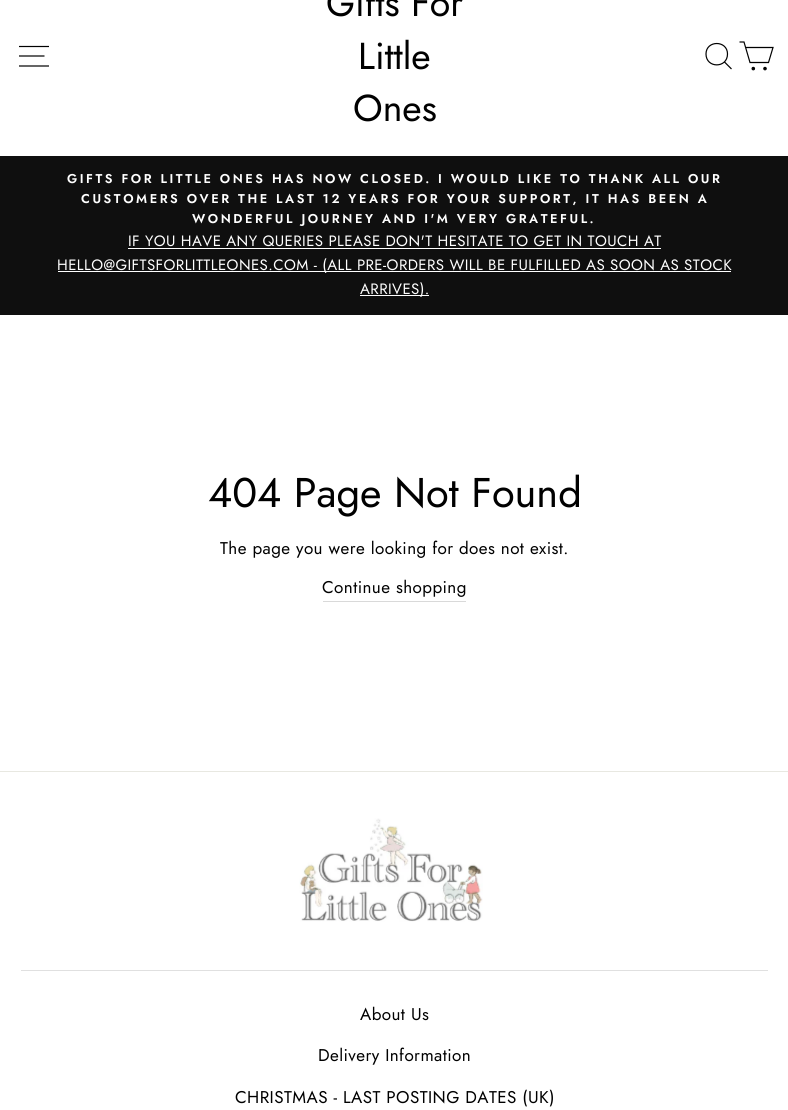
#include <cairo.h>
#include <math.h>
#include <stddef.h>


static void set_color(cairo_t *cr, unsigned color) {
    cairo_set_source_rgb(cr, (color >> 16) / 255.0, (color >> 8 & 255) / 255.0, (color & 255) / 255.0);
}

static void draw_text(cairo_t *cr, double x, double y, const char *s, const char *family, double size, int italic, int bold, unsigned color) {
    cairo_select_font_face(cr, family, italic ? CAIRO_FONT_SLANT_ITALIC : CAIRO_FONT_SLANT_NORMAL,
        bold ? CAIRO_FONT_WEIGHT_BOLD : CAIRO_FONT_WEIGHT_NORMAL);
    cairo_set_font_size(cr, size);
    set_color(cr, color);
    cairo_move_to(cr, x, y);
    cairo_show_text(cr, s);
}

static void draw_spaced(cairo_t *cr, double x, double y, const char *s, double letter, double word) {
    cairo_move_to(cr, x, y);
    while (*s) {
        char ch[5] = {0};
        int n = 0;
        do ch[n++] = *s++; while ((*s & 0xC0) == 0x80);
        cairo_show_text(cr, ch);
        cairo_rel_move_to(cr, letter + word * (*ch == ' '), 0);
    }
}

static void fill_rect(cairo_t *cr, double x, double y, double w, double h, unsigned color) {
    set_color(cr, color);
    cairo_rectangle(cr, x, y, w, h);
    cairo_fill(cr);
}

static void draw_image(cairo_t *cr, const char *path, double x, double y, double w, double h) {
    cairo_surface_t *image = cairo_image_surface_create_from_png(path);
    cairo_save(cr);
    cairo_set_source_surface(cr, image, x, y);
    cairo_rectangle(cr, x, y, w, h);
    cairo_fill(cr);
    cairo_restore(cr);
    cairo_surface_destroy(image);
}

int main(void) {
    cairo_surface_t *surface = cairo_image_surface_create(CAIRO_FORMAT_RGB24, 788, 1110);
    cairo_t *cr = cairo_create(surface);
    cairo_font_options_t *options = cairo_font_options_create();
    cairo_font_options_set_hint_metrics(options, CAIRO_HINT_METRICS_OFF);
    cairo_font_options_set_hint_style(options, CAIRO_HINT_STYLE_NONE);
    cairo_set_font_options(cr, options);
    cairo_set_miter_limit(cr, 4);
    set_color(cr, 0xFFFFFF);
    cairo_paint(cr);
    cairo_new_path(cr);
    cairo_move_to(cr, 19, 46.5);
    cairo_line_to(cr, 49, 46.5);
    cairo_move_to(cr, 19, 56);
    cairo_line_to(cr, 44.5, 56);
    cairo_move_to(cr, 19, 66);
    cairo_line_to(cr, 49, 66);
    set_color(cr, 0x000000);
    cairo_set_line_width(cr, 1.2);
    cairo_stroke(cr);
    draw_text(cr, 326, 16, "Gifts For", "Jost", 37.5, 0, 0, 0x000000);
    draw_text(cr, 358, 69, "Little", "Jost", 37.5, 0, 0, 0x000000);
    draw_text(cr, 353, 121, "Ones", "Jost", 37.5, 0, 0, 0x000000);
    cairo_new_path(cr);
    cairo_move_to(cr, 727.5, 54);
    cairo_curve_to(cr, 727.5, 68.5, 706, 68.5, 706, 54);
    cairo_curve_to(cr, 706, 40, 727.5, 40, 727.5, 54);
    cairo_close_path(cr);
    cairo_move_to(cr, 731.5, 69);
    cairo_line_to(cr, 724.5, 62);
    cairo_stroke(cr);
    cairo_new_path(cr);
    cairo_move_to(cr, 745.5, 47.5);
    cairo_line_to(cr, 773, 47.5);
    cairo_line_to(cr, 768.5, 62.5);
    cairo_line_to(cr, 750, 62.5);
    cairo_line_to(cr, 744, 42);
    cairo_line_to(cr, 739.5, 42);
    cairo_stroke(cr);
    cairo_arc(cr, 753.3, 68.6, 1.2, 0, 2 * M_PI);
    cairo_fill_preserve(cr);
    cairo_stroke(cr);
    cairo_arc(cr, 765, 68.6, 1.2, 0, 2 * M_PI);
    cairo_fill_preserve(cr);
    cairo_stroke(cr);
    fill_rect(cr, 0, 156, 788, 159, 0x0F0F0F);
    cairo_select_font_face(cr, "Jost SemiBold", CAIRO_FONT_SLANT_NORMAL, CAIRO_FONT_WEIGHT_NORMAL);
    cairo_set_font_size(cr, 12.75);
    set_color(cr, 0xFFFFFF);
    draw_spaced(cr, 67, 183, "GIFTS FOR LITTLE ONES HAS NOW CLOSED.", 2.55, 0);
    draw_spaced(cr, 438, 183, "I WOULD LIKE TO THANK ALL OUR", 2.55, 0);
    draw_spaced(cr, 81, 203, "CUSTOMERS OVER THE LAST 12 YEARS FOR YOUR SUPPORT, IT HAS BEEN A", 2.55, 0);
    draw_spaced(cr, 192, 223, "WONDERFUL JOURNEY AND I'M VERY GRATEFUL.", 2.55, 0);
    cairo_select_font_face(cr, "Jost", CAIRO_FONT_SLANT_NORMAL, CAIRO_FONT_WEIGHT_NORMAL);
    cairo_set_font_size(cr, 15);
    draw_spaced(cr, 128, 246, "IF YOU HAVE ANY QUERIES PLEASE DON'T HESITATE TO GET IN TOUCH AT", 0.43, 0);
    fill_rect(cr, 128, 248, 533, 1, 0xFFFFFF);
    fill_rect(cr, 58, 271, 673, 1, 0xFFFFFF);
    draw_spaced(cr, 57, 270, "HELLO@GIFTSFORLITTLEONES.COM - (ALL PRE-ORDERS WILL BE FULFILLED AS SOON AS STOCK", 0.43, 0);
    fill_rect(cr, 360, 295, 69, 1, 0xFFFFFF);
    draw_spaced(cr, 360, 294, "ARRIVES).", 0.43, 0);
    draw_text(cr, 208, 507, "404 Page Not Found", "Jost", 41.5, 0, 0, 0x000000);
    cairo_set_font_size(cr, 17);
    draw_spaced(cr, 220, 554, "The page you were looking for does not exist.", 0.43, 0);
    fill_rect(cr, 323, 601, 143, 1, 0xD9D9D9);
    set_color(cr, 0x000000);
    draw_spaced(cr, 322, 593, "Continue shopping", 0.43, 0);
    fill_rect(cr, 0, 771, 788, 1, 0xE8E8E1);
    draw_image(cr, "assets/img1.png", 299, 818, 184, 104);
    fill_rect(cr, 21, 970, 747, 1, 0xE0E0E0);
    set_color(cr, 0x000000);
    draw_spaced(cr, 360, 1020, "About Us", 0.43, 0);
    draw_spaced(cr, 318, 1061, "Delivery Information", 0.43, 0);
    draw_spaced(cr, 235, 1103, "CHRISTMAS - LAST POSTING DATES (UK)", 0.43, 0);
    cairo_surface_write_to_png(surface, "output.png");
    cairo_font_options_destroy(options);
    cairo_destroy(cr);
    cairo_surface_destroy(surface);
    return 0;
}
